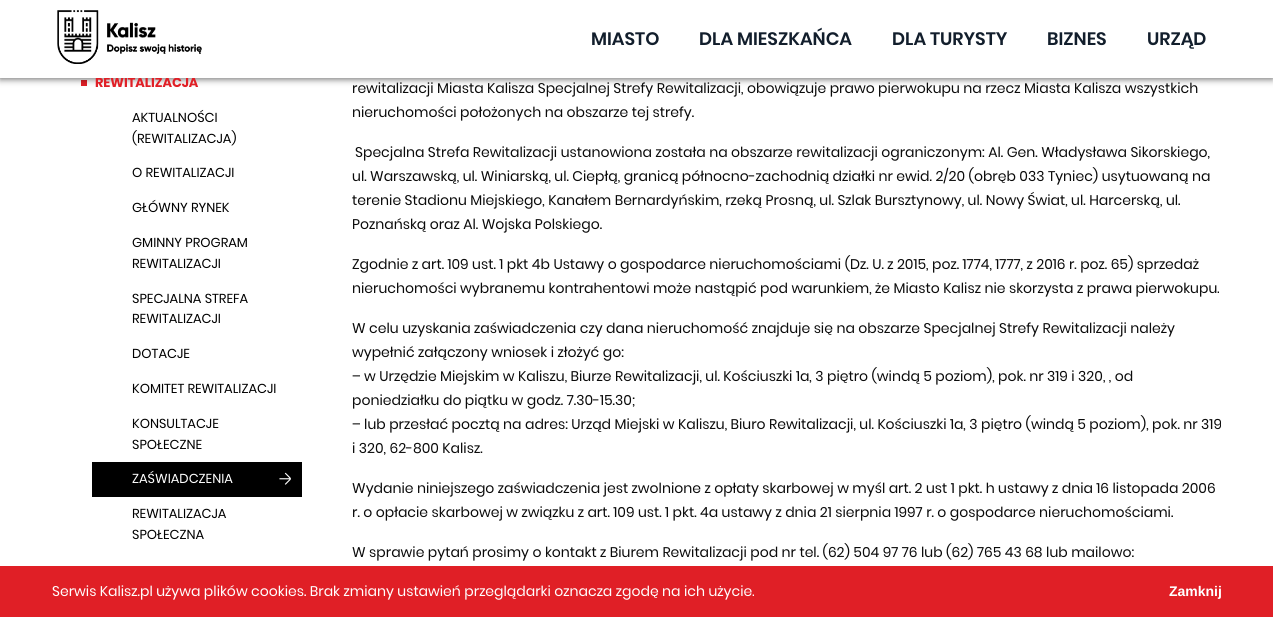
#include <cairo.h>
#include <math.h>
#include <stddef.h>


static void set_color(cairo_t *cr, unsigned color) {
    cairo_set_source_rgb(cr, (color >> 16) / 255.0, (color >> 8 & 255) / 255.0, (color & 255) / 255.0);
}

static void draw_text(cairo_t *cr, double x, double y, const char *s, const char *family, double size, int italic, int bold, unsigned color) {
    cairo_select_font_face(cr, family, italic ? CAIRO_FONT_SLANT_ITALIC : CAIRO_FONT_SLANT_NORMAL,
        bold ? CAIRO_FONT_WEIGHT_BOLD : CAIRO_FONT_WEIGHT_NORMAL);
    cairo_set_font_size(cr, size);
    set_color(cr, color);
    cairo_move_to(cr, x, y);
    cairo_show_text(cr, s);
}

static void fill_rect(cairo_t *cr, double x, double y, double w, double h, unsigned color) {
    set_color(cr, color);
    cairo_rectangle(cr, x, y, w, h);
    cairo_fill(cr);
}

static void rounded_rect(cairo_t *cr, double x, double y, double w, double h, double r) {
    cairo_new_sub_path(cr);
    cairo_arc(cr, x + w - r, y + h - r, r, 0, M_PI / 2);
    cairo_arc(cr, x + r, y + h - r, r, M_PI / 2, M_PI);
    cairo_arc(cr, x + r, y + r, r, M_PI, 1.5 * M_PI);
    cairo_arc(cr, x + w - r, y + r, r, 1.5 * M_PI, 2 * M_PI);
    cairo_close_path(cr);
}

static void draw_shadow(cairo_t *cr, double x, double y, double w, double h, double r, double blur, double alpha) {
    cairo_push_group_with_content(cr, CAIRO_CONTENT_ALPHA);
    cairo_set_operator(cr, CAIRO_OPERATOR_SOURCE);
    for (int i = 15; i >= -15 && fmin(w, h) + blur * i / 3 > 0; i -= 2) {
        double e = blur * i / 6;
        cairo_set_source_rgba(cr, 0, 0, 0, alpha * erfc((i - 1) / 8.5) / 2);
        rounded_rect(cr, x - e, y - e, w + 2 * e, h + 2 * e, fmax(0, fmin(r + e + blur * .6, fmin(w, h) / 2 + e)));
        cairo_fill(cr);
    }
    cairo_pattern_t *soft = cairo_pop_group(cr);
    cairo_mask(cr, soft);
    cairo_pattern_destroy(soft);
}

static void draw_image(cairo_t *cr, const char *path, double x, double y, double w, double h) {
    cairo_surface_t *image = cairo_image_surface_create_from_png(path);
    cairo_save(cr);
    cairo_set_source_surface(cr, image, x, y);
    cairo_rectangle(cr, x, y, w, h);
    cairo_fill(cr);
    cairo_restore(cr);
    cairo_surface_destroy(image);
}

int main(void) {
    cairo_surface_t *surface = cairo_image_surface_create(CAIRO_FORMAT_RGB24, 1273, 617);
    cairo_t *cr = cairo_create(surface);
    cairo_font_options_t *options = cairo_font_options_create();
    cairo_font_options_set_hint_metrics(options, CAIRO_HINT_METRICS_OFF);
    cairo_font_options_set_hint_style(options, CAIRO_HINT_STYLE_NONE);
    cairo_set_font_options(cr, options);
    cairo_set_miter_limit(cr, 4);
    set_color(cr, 0xFFFFFF);
    cairo_paint(cr);
    fill_rect(cr, 81, 80, 6, 6, 0xE01F26);
    set_color(cr, 0x000000);
    draw_shadow(cr, 0, 1, 1273, 78, 0, 3.5, 0.6);
    draw_text(cr, 95, 87, "REWITALIZACJA", "Poppins", 13, 0, 1, 0xE01F26);
    fill_rect(cr, 0, 0, 1273, 78, 0xFFFFFF);
    draw_image(cr, "assets/img1.png", 57, 10, 145, 54);
    draw_text(cr, 591, 45, "MIASTO", "Poppins SemiBold", 18, 0, 0, 0x121E2C);
    draw_text(cr, 699, 45, "DLA MIESZKAŃCA", "Poppins SemiBold", 18, 0, 0, 0x121E2C);
    draw_text(cr, 892, 45, "DLA TURYSTY", "Poppins SemiBold", 18, 0, 0, 0x121E2C);
    draw_text(cr, 1047, 45, "BIZNES", "Poppins SemiBold", 18, 0, 0, 0x121E2C);
    draw_text(cr, 1147, 45, "URZĄD", "Poppins SemiBold", 18, 0, 0, 0x121E2C);
    draw_text(cr, 132, 122, "AKTUALNOŚCI", "Poppins", 13, 0, 0, 0x000000);
    draw_text(cr, 132, 143, "(REWITALIZACJA)", "Poppins", 13, 0, 0, 0x000000);
    draw_text(cr, 132, 177, "O REWITALIZACJI", "Poppins", 13, 0, 0, 0x000000);
    draw_text(cr, 132, 212, "GŁÓWNY RYNEK", "Poppins", 13, 0, 0, 0x000000);
    draw_text(cr, 132, 247, "GMINNY PROGRAM", "Poppins", 13, 0, 0, 0x000000);
    draw_text(cr, 132, 268, "REWITALIZACJI", "Poppins", 13, 0, 0, 0x000000);
    draw_text(cr, 132, 303, "SPECJALNA STREFA", "Poppins", 13, 0, 0, 0x000000);
    draw_text(cr, 132, 323, "REWITALIZACJI", "Poppins", 13, 0, 0, 0x000000);
    draw_text(cr, 132, 358, "DOTACJE", "Poppins", 13, 0, 0, 0x000000);
    draw_text(cr, 132, 393, "KOMITET REWITALIZACJI", "Poppins", 13, 0, 0, 0x000000);
    draw_text(cr, 132, 428, "KONSULTACJE", "Poppins", 13, 0, 0, 0x000000);
    draw_text(cr, 132, 449, "SPOŁECZNE", "Poppins", 13, 0, 0, 0x000000);
    fill_rect(cr, 92, 462, 210, 35, 0x000000);
    draw_text(cr, 132, 483, "ZAŚWIADCZENIA", "Poppins", 13, 0, 0, 0xFFFFFF);
    draw_image(cr, "assets/img2.png", 279, 472, 12, 13);
    draw_text(cr, 132, 518, "REWITALIZACJA", "Poppins", 13, 0, 0, 0x000000);
    draw_text(cr, 132, 539, "SPOŁECZNA", "Poppins", 13, 0, 0, 0x000000);
    draw_text(cr, 352, 93, "rewitalizacji Miasta Kalisza Specjalnej Strefy Rewitalizacji, obowiązuje prawo pierwokupu na rzecz Miasta Kalisza wszystkich", "Poppins", 14, 0, 0, 0x0A0A0A);
    draw_text(cr, 352, 117, "nieruchomości położonych na obszarze tej strefy.", "Poppins", 14, 0, 0, 0x0A0A0A);
    draw_text(cr, 355, 157, "Specjalna Strefa Rewitalizacji ustanowiona została na obszarze rewitalizacji ograniczonym: Al. Gen. Władysława Sikorskiego,", "Poppins", 14, 0, 0, 0x0A0A0A);
    draw_text(cr, 352, 181, "ul. Warszawską, ul. Winiarską, ul. Ciepłą, granicą północno-zachodnią działki nr ewid. 2/20 (obręb 033 Tyniec) usytuowaną na", "Poppins", 14, 0, 0, 0x0A0A0A);
    draw_text(cr, 352, 205, "terenie Stadionu Miejskiego, Kanałem Bernardyńskim, rzeką Prosną, ul. Szlak Bursztynowy, ul. Nowy Świat, ul. Harcerską, ul.", "Poppins", 14, 0, 0, 0x0A0A0A);
    draw_text(cr, 352, 229, "Poznańską oraz Al. Wojska Polskiego.", "Poppins", 14, 0, 0, 0x0A0A0A);
    draw_text(cr, 352, 269, "Zgodnie z art. 109 ust. 1 pkt 4b Ustawy o gospodarce nieruchomościami (Dz. U. z 2015, poz. 1774, 1777, z 2016 r. poz. 65) sprzedaż", "Poppins", 14, 0, 0, 0x0A0A0A);
    draw_text(cr, 352, 293, "nieruchomości wybranemu kontrahentowi może nastąpić pod warunkiem, że Miasto Kalisz nie skorzysta z prawa pierwokupu.", "Poppins", 14, 0, 0, 0x0A0A0A);
    draw_text(cr, 352, 333, "W celu uzyskania zaświadczenia czy dana nieruchomość znajduje się na obszarze Specjalnej Strefy Rewitalizacji należy", "Poppins", 14, 0, 0, 0x0A0A0A);
    draw_text(cr, 352, 357, "wypełnić załączony wniosek i złożyć go:", "Poppins", 14, 0, 0, 0x0A0A0A);
    draw_text(cr, 352, 381, "– w Urzędzie Miejskim w Kaliszu, Biurze Rewitalizacji, ul. Kościuszki 1a, 3 piętro (windą 5 poziom), pok. nr 319 i 320, , od", "Poppins", 14, 0, 0, 0x0A0A0A);
    draw_text(cr, 352, 405, "poniedziałku do piątku w godz. 7.30-15.30;", "Poppins", 14, 0, 0, 0x0A0A0A);
    draw_text(cr, 352, 429, "– lub przesłać pocztą na adres: Urząd Miejski w Kaliszu, Biuro Rewitalizacji, ul. Kościuszki 1a, 3 piętro (windą 5 poziom), pok. nr 319", "Poppins", 14, 0, 0, 0x0A0A0A);
    draw_text(cr, 352, 453, "i 320, 62-800 Kalisz.", "Poppins", 14, 0, 0, 0x0A0A0A);
    draw_text(cr, 352, 493, "Wydanie niniejszego zaświadczenia jest zwolnione z opłaty skarbowej w myśl art. 2 ust 1 pkt. h ustawy z dnia 16 listopada 2006", "Poppins", 14, 0, 0, 0x0A0A0A);
    draw_text(cr, 352, 517, "r. o opłacie skarbowej w związku z art. 109 ust. 1 pkt. 4a ustawy z dnia 21 sierpnia 1997 r. o gospodarce nieruchomościami.", "Poppins", 14, 0, 0, 0x0A0A0A);
    draw_text(cr, 352, 557, "W sprawie pytań prosimy o kontakt z Biurem Rewitalizacji pod nr tel. (62) 504 97 76 lub (62) 765 43 68 lub mailowo:", "Poppins", 14, 0, 0, 0x0A0A0A);
    fill_rect(cr, 0, 566, 1273, 51, 0xE01F26);
    draw_text(cr, 52, 596, "Serwis Kalisz.pl używa plików cookies. Brak zmiany ustawień przeglądarki oznacza zgodę na ich użycie.", "Poppins", 14, 0, 0, 0xFFFFFF);
    draw_text(cr, 1169, 596, "Zamknij", "Liberation Sans", 14, 0, 1, 0xFFFFFF);
    cairo_surface_write_to_png(surface, "output.png");
    cairo_font_options_destroy(options);
    cairo_destroy(cr);
    cairo_surface_destroy(surface);
    return 0;
}
